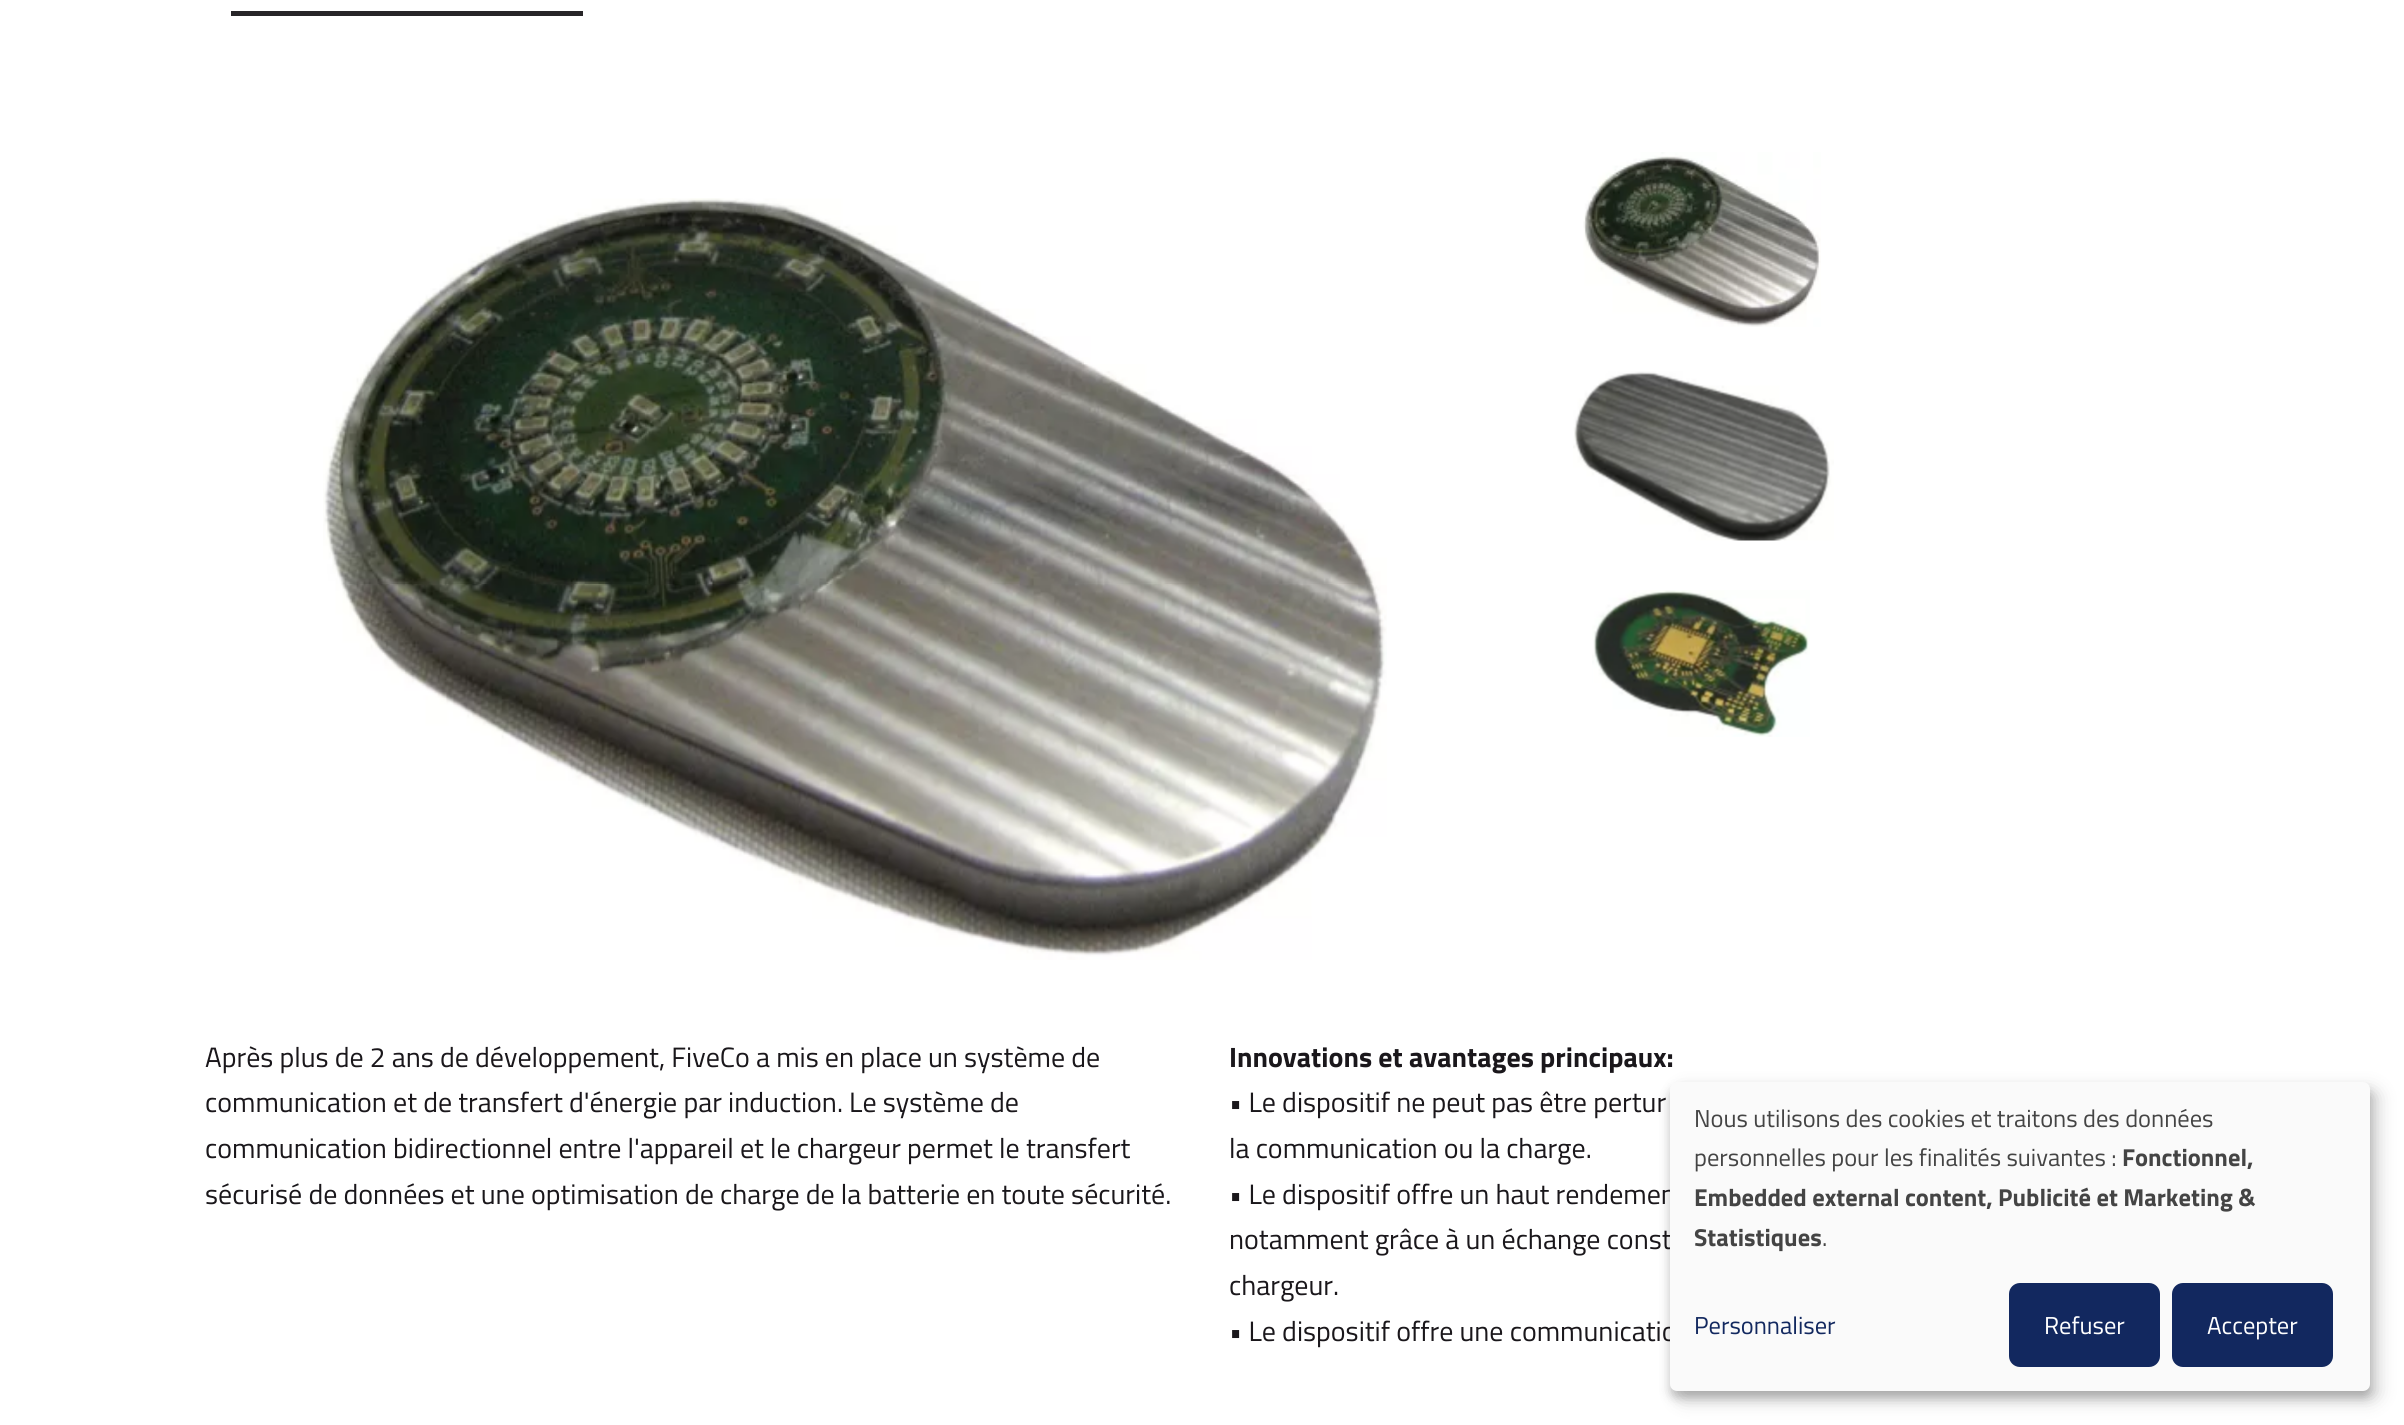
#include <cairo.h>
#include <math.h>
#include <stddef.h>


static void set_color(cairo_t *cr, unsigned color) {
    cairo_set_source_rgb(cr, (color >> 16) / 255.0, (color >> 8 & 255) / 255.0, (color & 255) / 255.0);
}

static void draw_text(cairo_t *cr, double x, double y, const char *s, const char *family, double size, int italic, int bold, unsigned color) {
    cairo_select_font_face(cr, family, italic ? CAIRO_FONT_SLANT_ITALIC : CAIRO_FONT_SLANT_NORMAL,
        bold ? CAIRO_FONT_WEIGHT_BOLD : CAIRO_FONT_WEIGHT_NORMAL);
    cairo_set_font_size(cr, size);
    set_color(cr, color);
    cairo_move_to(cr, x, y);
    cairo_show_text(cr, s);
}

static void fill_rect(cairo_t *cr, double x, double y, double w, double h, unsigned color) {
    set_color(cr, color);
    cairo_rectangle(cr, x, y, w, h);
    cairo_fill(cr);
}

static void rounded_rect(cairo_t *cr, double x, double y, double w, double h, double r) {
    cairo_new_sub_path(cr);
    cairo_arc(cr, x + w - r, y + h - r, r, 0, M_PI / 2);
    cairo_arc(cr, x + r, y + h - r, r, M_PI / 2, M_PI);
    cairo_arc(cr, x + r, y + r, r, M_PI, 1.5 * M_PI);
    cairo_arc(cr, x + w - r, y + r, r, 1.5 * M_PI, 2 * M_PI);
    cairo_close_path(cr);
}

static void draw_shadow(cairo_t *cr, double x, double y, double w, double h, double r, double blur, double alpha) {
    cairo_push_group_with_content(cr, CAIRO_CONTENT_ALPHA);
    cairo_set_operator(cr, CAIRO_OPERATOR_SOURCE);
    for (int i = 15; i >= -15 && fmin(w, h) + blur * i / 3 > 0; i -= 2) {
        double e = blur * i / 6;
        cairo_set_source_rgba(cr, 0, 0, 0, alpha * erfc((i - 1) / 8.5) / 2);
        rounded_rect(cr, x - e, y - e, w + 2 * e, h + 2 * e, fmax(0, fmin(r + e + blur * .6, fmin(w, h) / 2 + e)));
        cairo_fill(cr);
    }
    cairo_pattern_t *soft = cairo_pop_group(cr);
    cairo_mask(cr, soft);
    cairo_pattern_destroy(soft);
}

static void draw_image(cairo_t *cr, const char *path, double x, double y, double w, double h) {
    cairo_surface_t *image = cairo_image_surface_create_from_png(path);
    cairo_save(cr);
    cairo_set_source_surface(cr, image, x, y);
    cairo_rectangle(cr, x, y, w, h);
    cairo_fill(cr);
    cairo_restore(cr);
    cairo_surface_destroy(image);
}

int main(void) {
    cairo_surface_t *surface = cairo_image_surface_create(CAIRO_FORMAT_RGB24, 2404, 1425);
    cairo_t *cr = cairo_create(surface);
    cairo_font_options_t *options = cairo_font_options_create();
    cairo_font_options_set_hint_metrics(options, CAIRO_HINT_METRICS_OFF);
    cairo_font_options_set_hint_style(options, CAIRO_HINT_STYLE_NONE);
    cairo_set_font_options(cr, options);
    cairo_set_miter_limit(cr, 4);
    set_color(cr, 0xFFFFFF);
    cairo_paint(cr);
    fill_rect(cr, 231, 11, 352, 5, 0x272528);
    draw_image(cr, "assets/img1.png", 323, 198, 1064, 762);
    draw_image(cr, "assets/img2.png", 1583, 152, 238, 175);
    draw_image(cr, "assets/img3.png", 1573, 371, 261, 170);
    draw_image(cr, "assets/img4.png", 1592, 590, 218, 147);
    draw_text(cr, 205, 1067, "Après plus de 2 ans de développement, FiveCo a mis en place un système de", "Titillium Web", 28, 0, 0, 0x1A171B);
    draw_text(cr, 205, 1112, "communication et de transfert d'énergie par induction. Le système de", "Titillium Web", 28, 0, 0, 0x1A171B);
    draw_text(cr, 205, 1158, "communication bidirectionnel entre l'appareil et le chargeur permet le transfert", "Titillium Web", 28, 0, 0, 0x1A171B);
    draw_text(cr, 205, 1204, "sécurisé de données et une optimisation de charge de la batterie en toute sécurité.", "Titillium Web", 28, 0, 0, 0x1A171B);
    draw_text(cr, 1229, 1067, "Innovations et avantages principaux:", "Titillium Web", 28, 0, 1, 0x1A171B);
    draw_text(cr, 1229, 1112, "• Le dispositif ne peut pas être pertur", "Titillium Web", 28, 0, 0, 0x1A171B);
    draw_text(cr, 1229, 1158, "la communication ou la charge.", "Titillium Web", 28, 0, 0, 0x1A171B);
    draw_text(cr, 1229, 1204, "• Le dispositif offre un haut rendemen", "Titillium Web", 28, 0, 0, 0x1A171B);
    draw_text(cr, 1229, 1249, "notamment grâce à un échange const", "Titillium Web", 28, 0, 0, 0x1A171B);
    draw_text(cr, 1229, 1295, "chargeur.", "Titillium Web", 28, 0, 0, 0x1A171B);
    draw_text(cr, 1229, 1341, "• Le dispositif offre une communicatio", "Titillium Web", 28, 0, 0, 0x1A171B);
    set_color(cr, 0x000000);
    draw_shadow(cr, 1678, 1090, 700, 310, 7, 9, 0.19);
    draw_shadow(cr, 1670, 1089, 700, 309, 7, 5, 0.2);
    set_color(cr, 0xFAFAFA);
    rounded_rect(cr, 1670, 1082, 700, 309, 7);
    cairo_fill(cr);
    draw_text(cr, 1694, 1127, "Nous utilisons des cookies et traitons des données", "Titillium Web", 24.5, 0, 0, 0x444444);
    draw_text(cr, 1694, 1166, "personnelles pour les finalités suivantes :", "Titillium Web", 24.5, 0, 0, 0x444444);
    draw_text(cr, 2122, 1166, "Fonctionnel,", "Titillium Web", 24.5, 0, 1, 0x444444);
    draw_text(cr, 1694, 1206, "Embedded external content, Publicité et Marketing &", "Titillium Web", 24.5, 0, 1, 0x444444);
    draw_text(cr, 1694, 1246, "Statistiques", "Titillium Web", 24.5, 0, 1, 0x444444);
    draw_text(cr, 1822, 1246, ".", "Titillium Web", 24.5, 0, 0, 0x444444);
    draw_text(cr, 1694, 1334, "Personnaliser", "Titillium Web", 24.5, 0, 0, 0x12285F);
    rounded_rect(cr, 2011.5, 1285.5, 146, 79, 8.5);
    cairo_fill_preserve(cr);
    cairo_set_line_width(cr, 5);
    cairo_stroke(cr);
    draw_text(cr, 2044, 1334, "Refuser", "Titillium Web", 24.5, 0, 0, 0xFFFFFF);
    set_color(cr, 0x12285F);
    rounded_rect(cr, 2174.5, 1285.5, 156, 79, 8.5);
    cairo_fill_preserve(cr);
    cairo_stroke(cr);
    draw_text(cr, 2207, 1334, "Accepter", "Titillium Web", 24.5, 0, 0, 0xFFFFFF);
    cairo_surface_write_to_png(surface, "output.png");
    cairo_font_options_destroy(options);
    cairo_destroy(cr);
    cairo_surface_destroy(surface);
    return 0;
}
